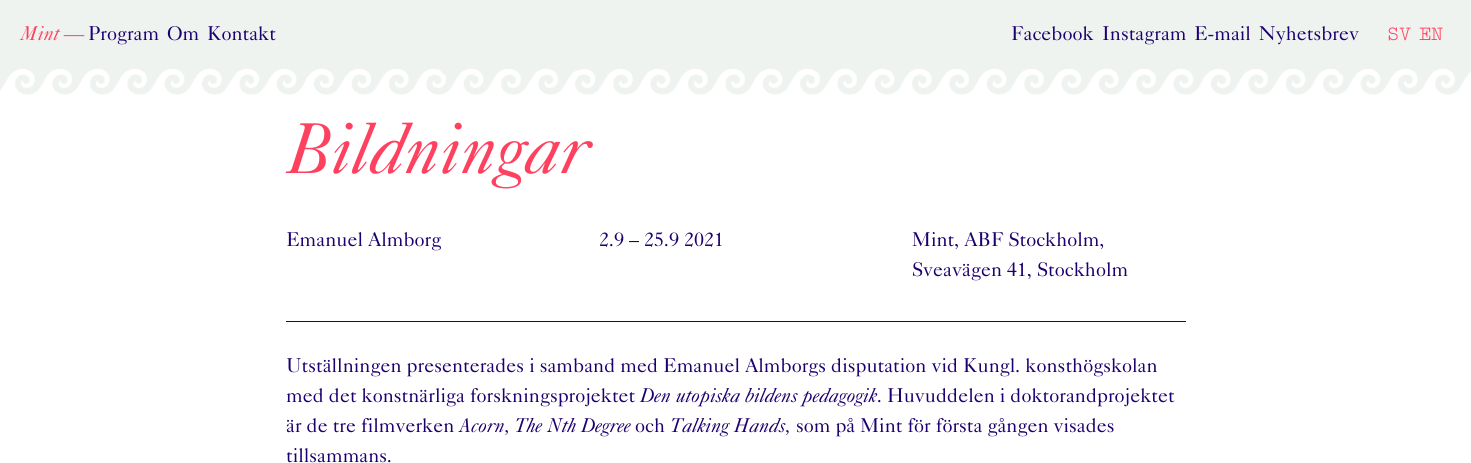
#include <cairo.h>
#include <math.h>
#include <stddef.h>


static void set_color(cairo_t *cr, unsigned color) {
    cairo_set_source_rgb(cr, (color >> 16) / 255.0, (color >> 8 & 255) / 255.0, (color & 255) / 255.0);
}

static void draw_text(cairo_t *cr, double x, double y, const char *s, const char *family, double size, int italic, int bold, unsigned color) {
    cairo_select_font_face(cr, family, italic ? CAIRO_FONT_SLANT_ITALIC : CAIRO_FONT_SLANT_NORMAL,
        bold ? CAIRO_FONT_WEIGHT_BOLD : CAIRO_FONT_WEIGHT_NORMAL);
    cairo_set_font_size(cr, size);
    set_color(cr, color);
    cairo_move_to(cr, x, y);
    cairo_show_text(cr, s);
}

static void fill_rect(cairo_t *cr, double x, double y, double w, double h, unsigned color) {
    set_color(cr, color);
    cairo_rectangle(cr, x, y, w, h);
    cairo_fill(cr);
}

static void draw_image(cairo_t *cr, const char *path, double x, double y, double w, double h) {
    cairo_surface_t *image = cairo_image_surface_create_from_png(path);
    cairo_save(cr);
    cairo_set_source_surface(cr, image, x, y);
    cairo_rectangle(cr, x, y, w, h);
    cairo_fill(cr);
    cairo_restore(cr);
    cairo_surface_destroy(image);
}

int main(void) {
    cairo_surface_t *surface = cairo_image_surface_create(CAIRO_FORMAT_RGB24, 1471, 463);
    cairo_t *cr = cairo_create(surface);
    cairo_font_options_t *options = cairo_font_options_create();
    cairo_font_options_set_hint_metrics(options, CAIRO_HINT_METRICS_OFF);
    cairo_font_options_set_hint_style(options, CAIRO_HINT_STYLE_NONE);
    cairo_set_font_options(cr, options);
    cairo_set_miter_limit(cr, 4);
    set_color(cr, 0xFFFFFF);
    cairo_paint(cr);
    draw_image(cr, "assets/img1.png", 0, 0, 1471, 95);
    draw_text(cr, 20, 40, "Mint —", "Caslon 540", 20, 1, 0, 0xFF4160);
    draw_text(cr, 88, 40, "Program", "Caslon 540", 20, 0, 0, 0x1D006F);
    draw_text(cr, 167, 40, "Om", "Caslon 540", 20, 0, 0, 0x1D006F);
    draw_text(cr, 207, 40, "Kontakt", "Caslon 540", 20, 0, 0, 0x1D006F);
    draw_text(cr, 1011, 40, "Facebook", "Caslon 540", 20, 0, 0, 0x1D006F);
    draw_text(cr, 1102, 40, "Instagram", "Caslon 540", 20, 0, 0, 0x1D006F);
    draw_text(cr, 1194, 40, "E-mail", "Caslon 540", 20, 0, 0, 0x1D006F);
    draw_text(cr, 1259, 40, "Nyhetsbrev", "Caslon 540", 20, 0, 0, 0x1D006F);
    draw_text(cr, 1387, 40, "SV", "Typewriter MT", 20, 0, 0, 0xFF4160);
    draw_text(cr, 1419, 40, "EN", "Typewriter MT", 20, 0, 0, 0xFF4160);
    draw_text(cr, 286, 173, "Bildningar", "Caslon 540", 72, 1, 0, 0xFF4160);
    draw_text(cr, 286, 246, "Emanuel Almborg", "Caslon 540", 20, 0, 0, 0x1D006F);
    draw_text(cr, 599, 246, "2.9 – 25.9 2021", "Caslon 540", 20, 0, 0, 0x1D006F);
    draw_text(cr, 912, 246, "Mint, ABF Stockholm,", "Caslon 540", 20, 0, 0, 0x1D006F);
    draw_text(cr, 912, 276, "Sveavägen 41, Stockholm", "Caslon 540", 20, 0, 0, 0x1D006F);
    fill_rect(cr, 286, 321, 900, 1, 0x1D006F);
    draw_text(cr, 286, 372, "Utställningen presenterades i samband med Emanuel Almborgs disputation vid Kungl. konsthögskolan", "Caslon 540", 20, 0, 0, 0x1D006F);
    draw_text(cr, 286, 402, "med det konstnärliga forskningsprojektet", "Caslon 540", 20, 0, 0, 0x1D006F);
    draw_text(cr, 640, 402, "Den utopiska bildens pedagogik", "Caslon 540", 20, 1, 0, 0x1D006F);
    draw_text(cr, 877, 402, ". Huvuddelen i doktorandprojektet", "Caslon 540", 20, 0, 0, 0x1D006F);
    draw_text(cr, 286, 432, "är de tre filmverken", "Caslon 540", 20, 0, 0, 0x1D006F);
    draw_text(cr, 459, 432, "Acorn, The Nth Degree", "Caslon 540", 20, 1, 0, 0x1D006F);
    draw_text(cr, 635, 432, "och", "Caslon 540", 20, 0, 0, 0x1D006F);
    draw_text(cr, 670, 432, "Talking Hands,", "Caslon 540", 20, 1, 0, 0x1D006F);
    draw_text(cr, 796, 432, "som på Mint för första gången visades", "Caslon 540", 20, 0, 0, 0x1D006F);
    draw_text(cr, 286, 462, "tillsammans.", "Caslon 540", 20, 0, 0, 0x1D006F);
    cairo_surface_write_to_png(surface, "output.png");
    cairo_font_options_destroy(options);
    cairo_destroy(cr);
    cairo_surface_destroy(surface);
    return 0;
}
